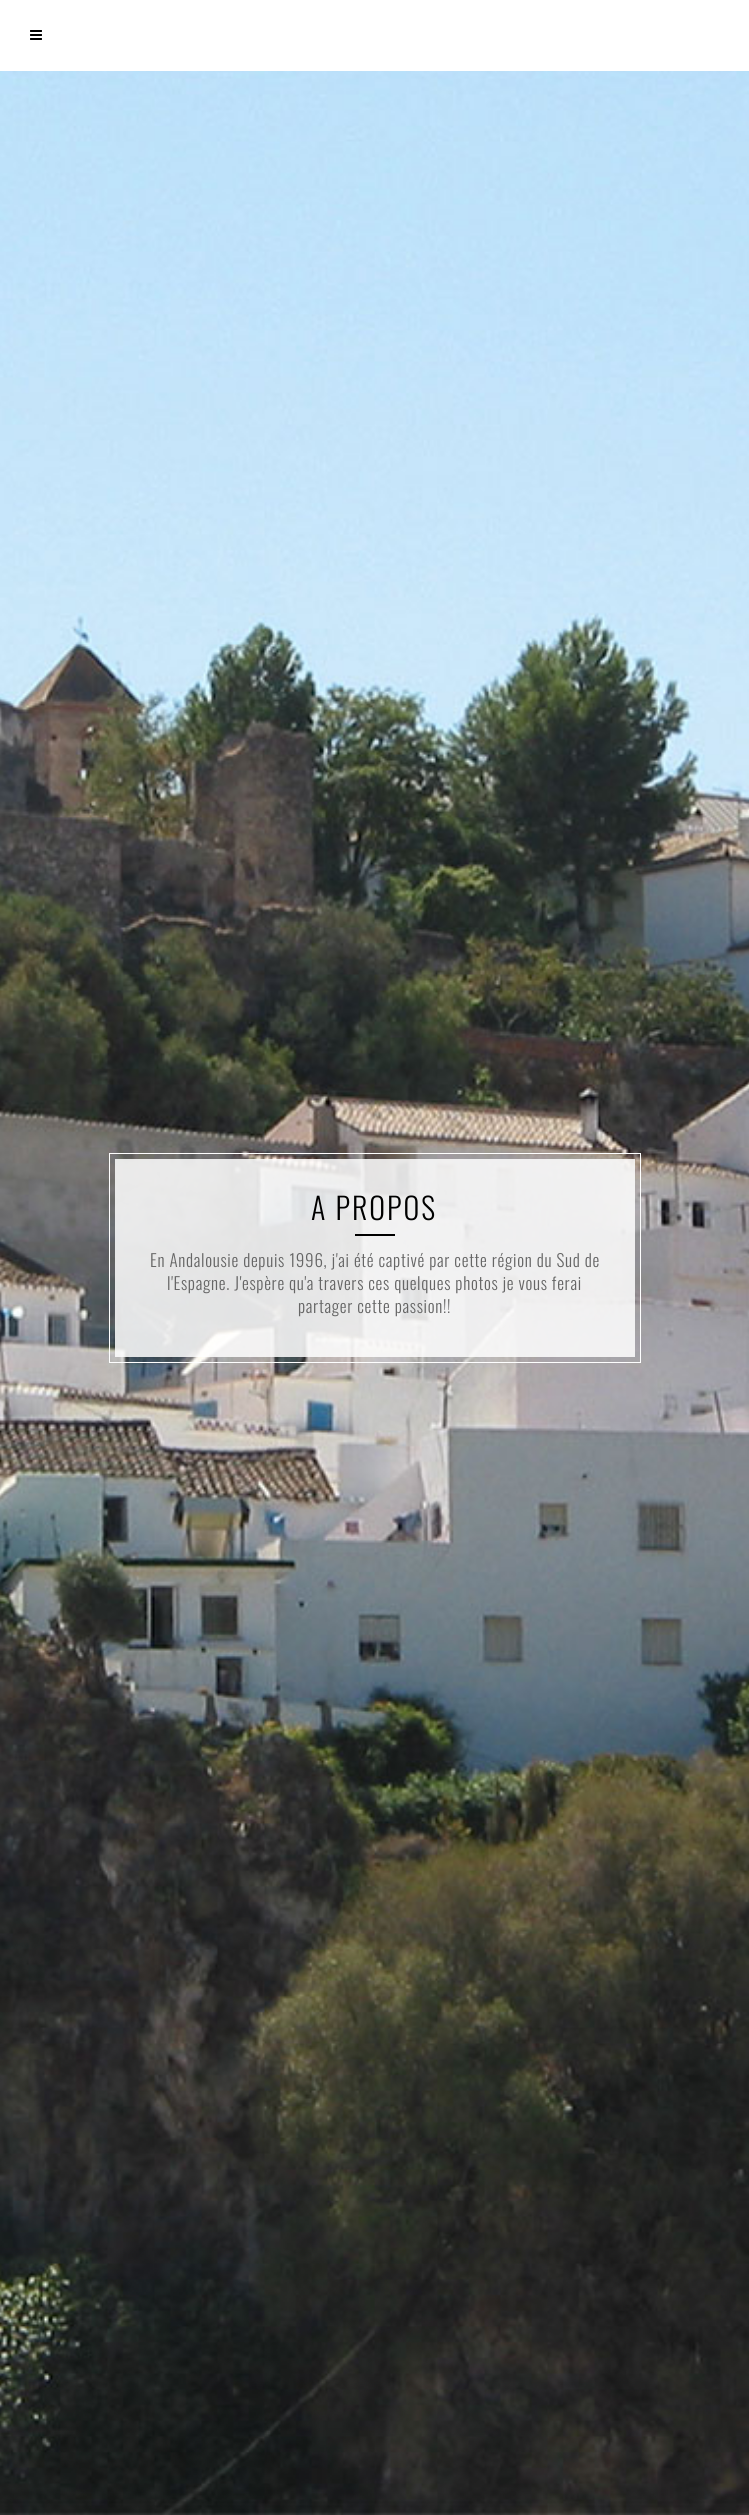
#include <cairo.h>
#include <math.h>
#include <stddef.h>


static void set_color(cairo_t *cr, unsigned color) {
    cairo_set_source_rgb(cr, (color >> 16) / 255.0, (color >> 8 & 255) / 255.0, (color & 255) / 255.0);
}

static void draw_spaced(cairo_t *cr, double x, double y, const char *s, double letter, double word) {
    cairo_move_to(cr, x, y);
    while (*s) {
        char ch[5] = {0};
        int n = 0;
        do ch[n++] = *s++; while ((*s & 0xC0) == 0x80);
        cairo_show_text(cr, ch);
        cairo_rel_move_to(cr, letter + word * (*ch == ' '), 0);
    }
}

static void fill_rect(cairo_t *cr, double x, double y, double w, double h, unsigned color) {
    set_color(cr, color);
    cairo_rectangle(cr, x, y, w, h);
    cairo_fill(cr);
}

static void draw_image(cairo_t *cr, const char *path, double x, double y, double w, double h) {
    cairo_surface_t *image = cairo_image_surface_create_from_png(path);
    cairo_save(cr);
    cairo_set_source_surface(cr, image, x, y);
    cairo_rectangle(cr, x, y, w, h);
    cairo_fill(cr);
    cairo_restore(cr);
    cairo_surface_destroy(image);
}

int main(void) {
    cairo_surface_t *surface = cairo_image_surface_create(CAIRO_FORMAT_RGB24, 749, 2515);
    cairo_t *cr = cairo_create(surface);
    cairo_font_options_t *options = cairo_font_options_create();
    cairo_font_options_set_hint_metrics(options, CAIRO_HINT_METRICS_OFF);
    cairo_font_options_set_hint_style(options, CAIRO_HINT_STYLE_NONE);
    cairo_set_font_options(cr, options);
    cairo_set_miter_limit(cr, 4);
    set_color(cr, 0xFFFFFF);
    cairo_paint(cr);
    draw_image(cr, "assets/img1.png", 30, 30, 12, 10);
    draw_image(cr, "assets/img2.png", 0, 71, 749, 2444);
    cairo_set_source_rgba(cr, 1, 1, 1, 0.85);
    cairo_rectangle(cr, 115, 1159, 520, 198);
    cairo_fill(cr);
    fill_rect(cr, 355, 1234, 40, 2, 0x000000);
    cairo_rectangle(cr, 109.5, 1153.5, 531, 209);
    set_color(cr, 0xFFFFFF);
    cairo_set_line_width(cr, 1);
    cairo_stroke(cr);
    cairo_select_font_face(cr, "Oswald Light", CAIRO_FONT_SLANT_NORMAL, CAIRO_FONT_WEIGHT_NORMAL);
    cairo_set_font_size(cr, 30);
    set_color(cr, 0x000000);
    draw_spaced(cr, 311, 1220, "A PROPOS", 2, 0);
    cairo_set_font_size(cr, 17.1);
    set_color(cr, 0x666666);
    draw_spaced(cr, 150, 1267, "En Andalousie depuis 1996, j'ai été captivé par cette région du Sud de", 0.7, 0);
    draw_spaced(cr, 167, 1290, "l'Espagne. J'espère qu'a travers ces quelques photos je vous ferai", 0.7, 0);
    draw_spaced(cr, 298, 1313, "partager cette passion!!", 0.7, 0);
    cairo_surface_write_to_png(surface, "output.png");
    cairo_font_options_destroy(options);
    cairo_destroy(cr);
    cairo_surface_destroy(surface);
    return 0;
}
